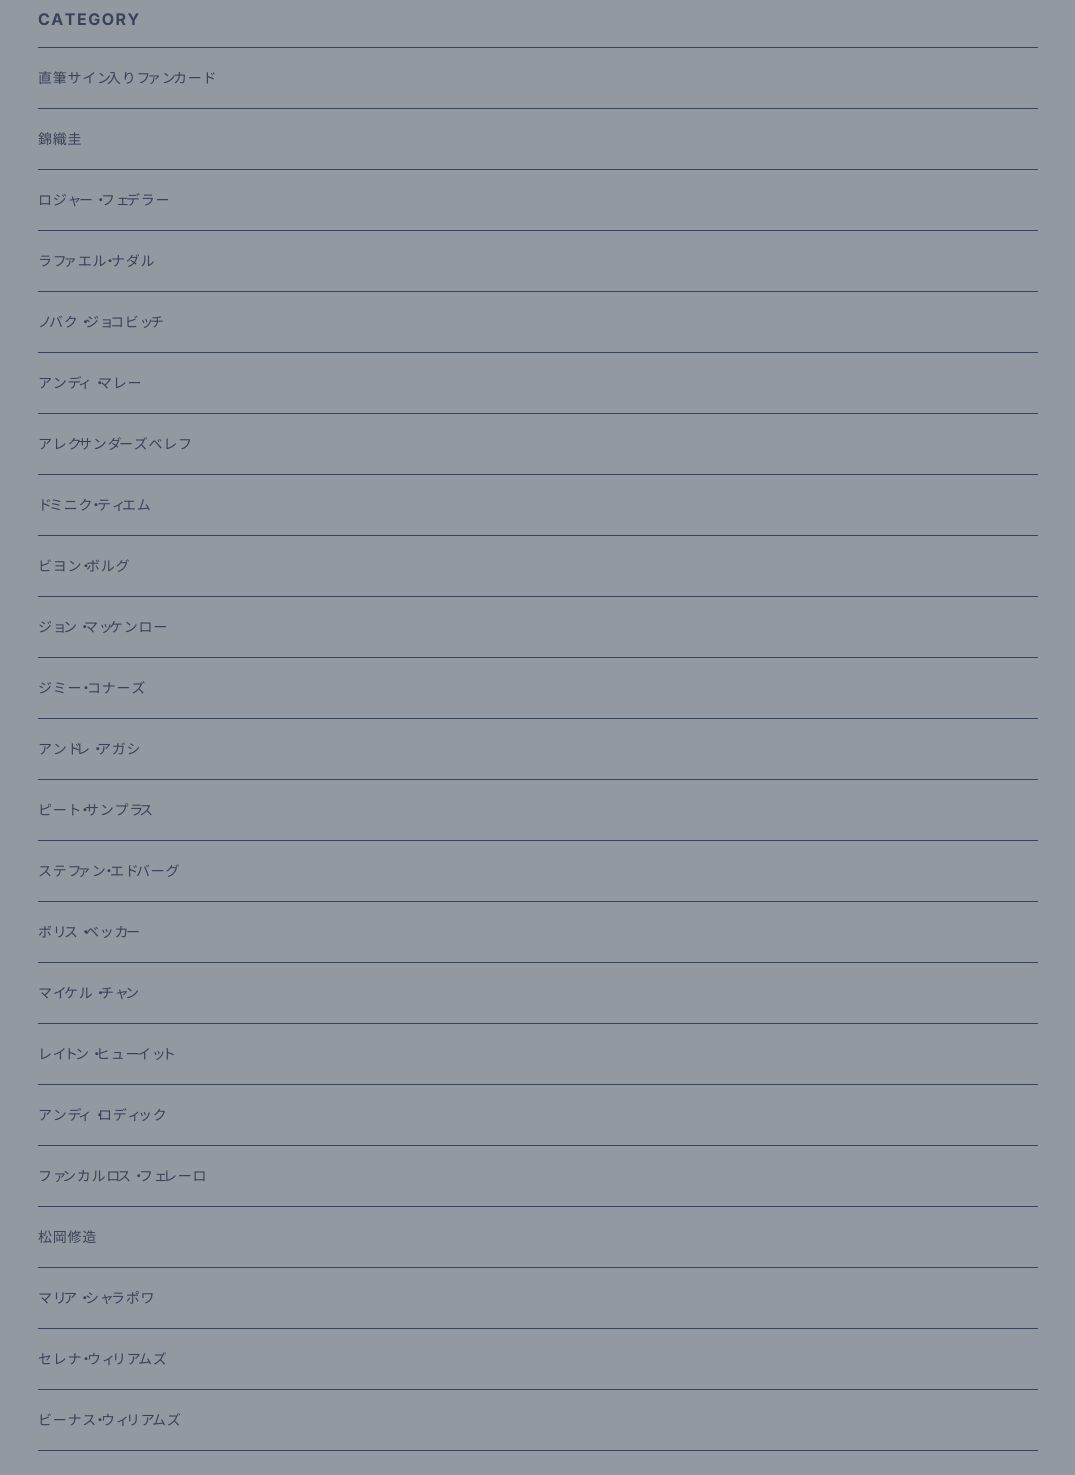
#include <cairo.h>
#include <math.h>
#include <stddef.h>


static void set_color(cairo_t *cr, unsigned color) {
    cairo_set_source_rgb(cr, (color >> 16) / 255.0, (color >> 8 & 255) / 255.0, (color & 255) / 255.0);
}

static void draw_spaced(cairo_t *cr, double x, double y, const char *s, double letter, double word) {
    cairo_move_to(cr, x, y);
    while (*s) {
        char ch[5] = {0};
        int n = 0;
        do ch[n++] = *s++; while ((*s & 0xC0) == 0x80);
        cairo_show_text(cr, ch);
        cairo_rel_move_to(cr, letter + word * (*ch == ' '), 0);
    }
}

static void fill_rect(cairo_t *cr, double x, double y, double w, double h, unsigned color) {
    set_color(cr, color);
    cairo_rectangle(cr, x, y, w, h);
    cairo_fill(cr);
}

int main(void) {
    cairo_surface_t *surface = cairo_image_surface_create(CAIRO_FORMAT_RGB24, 1075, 1475);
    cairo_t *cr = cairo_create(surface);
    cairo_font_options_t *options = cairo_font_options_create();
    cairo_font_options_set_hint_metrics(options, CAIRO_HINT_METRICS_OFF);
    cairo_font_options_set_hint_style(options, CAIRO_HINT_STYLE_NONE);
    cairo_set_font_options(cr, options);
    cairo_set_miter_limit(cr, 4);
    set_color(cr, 0x9399A0);
    cairo_paint(cr);
    cairo_select_font_face(cr, "Inter", CAIRO_FONT_SLANT_NORMAL, CAIRO_FONT_WEIGHT_BOLD);
    cairo_set_font_size(cr, 16);
    set_color(cr, 0x384359);
    draw_spaced(cr, 38, 25, "CATEGORY", 1.5, 0);
    fill_rect(cr, 38, 47, 1000, 1, 0x384359);
    cairo_select_font_face(cr, "Noto Sans JP", CAIRO_FONT_SLANT_NORMAL, CAIRO_FONT_WEIGHT_NORMAL);
    cairo_set_font_size(cr, 14);
    draw_spaced(cr, 38, 83, "直筆サイン", 0.75, 0);
    draw_spaced(cr, 107, 83, "入りフ", 0.75, 0);
    draw_spaced(cr, 147, 83, "ァン", 0.75, 0);
    draw_spaced(cr, 173, 83, "カード", 0.75, 0);
    fill_rect(cr, 38, 108, 1000, 1, 0x384359);
    draw_spaced(cr, 38, 144, "錦織圭", 0.75, 0);
    fill_rect(cr, 38, 169, 1000, 1, 0x384359);
    draw_spaced(cr, 38, 205, "ロジャ", 0.75, 0);
    draw_spaced(cr, 79, 205, "ー・", 0.75, 0);
    draw_spaced(cr, 101, 205, "フェ", 0.75, 0);
    draw_spaced(cr, 126, 205, "デラー", 0.75, 0);
    fill_rect(cr, 38, 230, 1000, 1, 0x384359);
    draw_spaced(cr, 38, 266, "ラフ", 0.75, 0);
    draw_spaced(cr, 63, 266, "ァエル", 0.75, 0);
    draw_spaced(cr, 103, 266, "・", 0.75, 0);
    draw_spaced(cr, 111, 266, "ナダル", 0.75, 0);
    fill_rect(cr, 38, 291, 1000, 1, 0x384359);
    draw_spaced(cr, 38, 327, "ノ", 0.75, 0);
    draw_spaced(cr, 49, 327, "バク・", 0.75, 0);
    draw_spaced(cr, 85, 327, "ジョ", 0.75, 0);
    draw_spaced(cr, 110, 327, "コビッ", 0.75, 0);
    draw_spaced(cr, 150, 327, "チ", 0.75, 0);
    fill_rect(cr, 38, 352, 1000, 1, 0x384359);
    draw_spaced(cr, 38, 388, "アンデ", 0.75, 0);
    draw_spaced(cr, 78, 388, "ィ・", 0.75, 0);
    draw_spaced(cr, 98, 388, "マレー", 0.75, 0);
    fill_rect(cr, 38, 413, 1000, 1, 0x384359);
    draw_spaced(cr, 38, 449, "アレク", 0.75, 0);
    draw_spaced(cr, 78, 449, "サンダ", 0.75, 0);
    draw_spaced(cr, 119, 449, "ーズベレフ", 0.75, 0);
    fill_rect(cr, 38, 474, 1000, 1, 0x384359);
    draw_spaced(cr, 38, 510, "ド", 0.75, 0);
    draw_spaced(cr, 49, 510, "ミニク", 0.75, 0);
    draw_spaced(cr, 89, 510, "・", 0.75, 0);
    draw_spaced(cr, 97, 510, "ティ", 0.75, 0);
    draw_spaced(cr, 122, 510, "エム", 0.75, 0);
    fill_rect(cr, 38, 535, 1000, 1, 0x384359);
    draw_spaced(cr, 38, 571, "ビヨン", 0.75, 0);
    draw_spaced(cr, 79, 571, "・", 0.75, 0);
    draw_spaced(cr, 86, 571, "ボルグ", 0.75, 0);
    fill_rect(cr, 38, 596, 1000, 1, 0x384359);
    draw_spaced(cr, 38, 632, "ジョ", 0.75, 0);
    draw_spaced(cr, 63, 632, "ン・", 0.75, 0);
    draw_spaced(cr, 84, 632, "マッ", 0.75, 0);
    draw_spaced(cr, 109, 632, "ケンロー", 0.75, 0);
    fill_rect(cr, 38, 657, 1000, 1, 0x384359);
    draw_spaced(cr, 38, 693, "ジミー", 0.75, 0);
    draw_spaced(cr, 79, 693, "・", 0.75, 0);
    draw_spaced(cr, 87, 693, "コナーズ", 0.75, 0);
    fill_rect(cr, 38, 718, 1000, 1, 0x384359);
    draw_spaced(cr, 38, 754, "アンド", 0.75, 0);
    draw_spaced(cr, 76, 754, "レ・", 0.75, 0);
    draw_spaced(cr, 97, 754, "アガシ", 0.75, 0);
    fill_rect(cr, 38, 779, 1000, 1, 0x384359);
    draw_spaced(cr, 38, 815, "ピート", 0.75, 0);
    draw_spaced(cr, 78, 815, "・", 0.75, 0);
    draw_spaced(cr, 85, 815, "サンプラ", 0.75, 0);
    draw_spaced(cr, 139, 815, "ス", 0.75, 0);
    fill_rect(cr, 38, 840, 1000, 1, 0x384359);
    draw_spaced(cr, 38, 876, "ステフ", 0.75, 0);
    draw_spaced(cr, 77, 876, "ァン", 0.75, 0);
    draw_spaced(cr, 102, 876, "・", 0.75, 0);
    draw_spaced(cr, 110, 876, "エド", 0.75, 0);
    draw_spaced(cr, 136, 876, "バーグ", 0.75, 0);
    fill_rect(cr, 38, 901, 1000, 1, 0x384359);
    draw_spaced(cr, 38, 937, "ボリ", 0.75, 0);
    draw_spaced(cr, 64, 937, "ス・", 0.75, 0);
    draw_spaced(cr, 85, 937, "ベッカ", 0.75, 0);
    draw_spaced(cr, 126, 937, "ー", 0.75, 0);
    fill_rect(cr, 38, 962, 1000, 1, 0x384359);
    draw_spaced(cr, 38, 998, "マイ", 0.75, 0);
    draw_spaced(cr, 64, 998, "ケル・", 0.75, 0);
    draw_spaced(cr, 100, 998, "チャ", 0.75, 0);
    draw_spaced(cr, 125, 998, "ン", 0.75, 0);
    fill_rect(cr, 38, 1023, 1000, 1, 0x384359);
    draw_spaced(cr, 38, 1059, "レイ", 0.75, 0);
    draw_spaced(cr, 64, 1059, "ト", 0.75, 0);
    draw_spaced(cr, 75, 1059, "ン・", 0.75, 0);
    draw_spaced(cr, 96, 1059, "ヒュー", 0.75, 0);
    draw_spaced(cr, 137, 1059, "イッ", 0.75, 0);
    draw_spaced(cr, 162, 1059, "ト", 0.75, 0);
    fill_rect(cr, 38, 1084, 1000, 1, 0x384359);
    draw_spaced(cr, 38, 1120, "アンデ", 0.75, 0);
    draw_spaced(cr, 78, 1120, "ィ・", 0.75, 0);
    draw_spaced(cr, 98, 1120, "ロディ", 0.75, 0);
    draw_spaced(cr, 138, 1120, "ック", 0.75, 0);
    fill_rect(cr, 38, 1145, 1000, 1, 0x384359);
    draw_spaced(cr, 38, 1181, "ファ", 0.75, 0);
    draw_spaced(cr, 62, 1181, "ンカルロ", 0.75, 0);
    draw_spaced(cr, 117, 1181, "ス・", 0.75, 0);
    draw_spaced(cr, 139, 1181, "フェ", 0.75, 0);
    draw_spaced(cr, 163, 1181, "レーロ", 0.75, 0);
    fill_rect(cr, 38, 1206, 1000, 1, 0x384359);
    draw_spaced(cr, 38, 1242, "松岡修造", 0.75, 0);
    fill_rect(cr, 38, 1267, 1000, 1, 0x384359);
    draw_spaced(cr, 38, 1303, "マリ", 0.75, 0);
    draw_spaced(cr, 63, 1303, "ア・", 0.75, 0);
    draw_spaced(cr, 85, 1303, "シャ", 0.75, 0);
    draw_spaced(cr, 111, 1303, "ラポワ", 0.75, 0);
    fill_rect(cr, 38, 1328, 1000, 1, 0x384359);
    draw_spaced(cr, 38, 1364, "セレナ", 0.75, 0);
    draw_spaced(cr, 79, 1364, "・", 0.75, 0);
    draw_spaced(cr, 87, 1364, "ウィ", 0.75, 0);
    draw_spaced(cr, 112, 1364, "リア", 0.75, 0);
    draw_spaced(cr, 138, 1364, "ムズ", 0.75, 0);
    fill_rect(cr, 38, 1389, 1000, 1, 0x384359);
    draw_spaced(cr, 38, 1425, "ビーナス", 0.75, 0);
    draw_spaced(cr, 93, 1425, "・", 0.75, 0);
    draw_spaced(cr, 101, 1425, "ウィ", 0.75, 0);
    draw_spaced(cr, 126, 1425, "リア", 0.75, 0);
    draw_spaced(cr, 152, 1425, "ムズ", 0.75, 0);
    fill_rect(cr, 38, 1450, 1000, 1, 0x384359);
    cairo_surface_write_to_png(surface, "output.png");
    cairo_font_options_destroy(options);
    cairo_destroy(cr);
    cairo_surface_destroy(surface);
    return 0;
}
